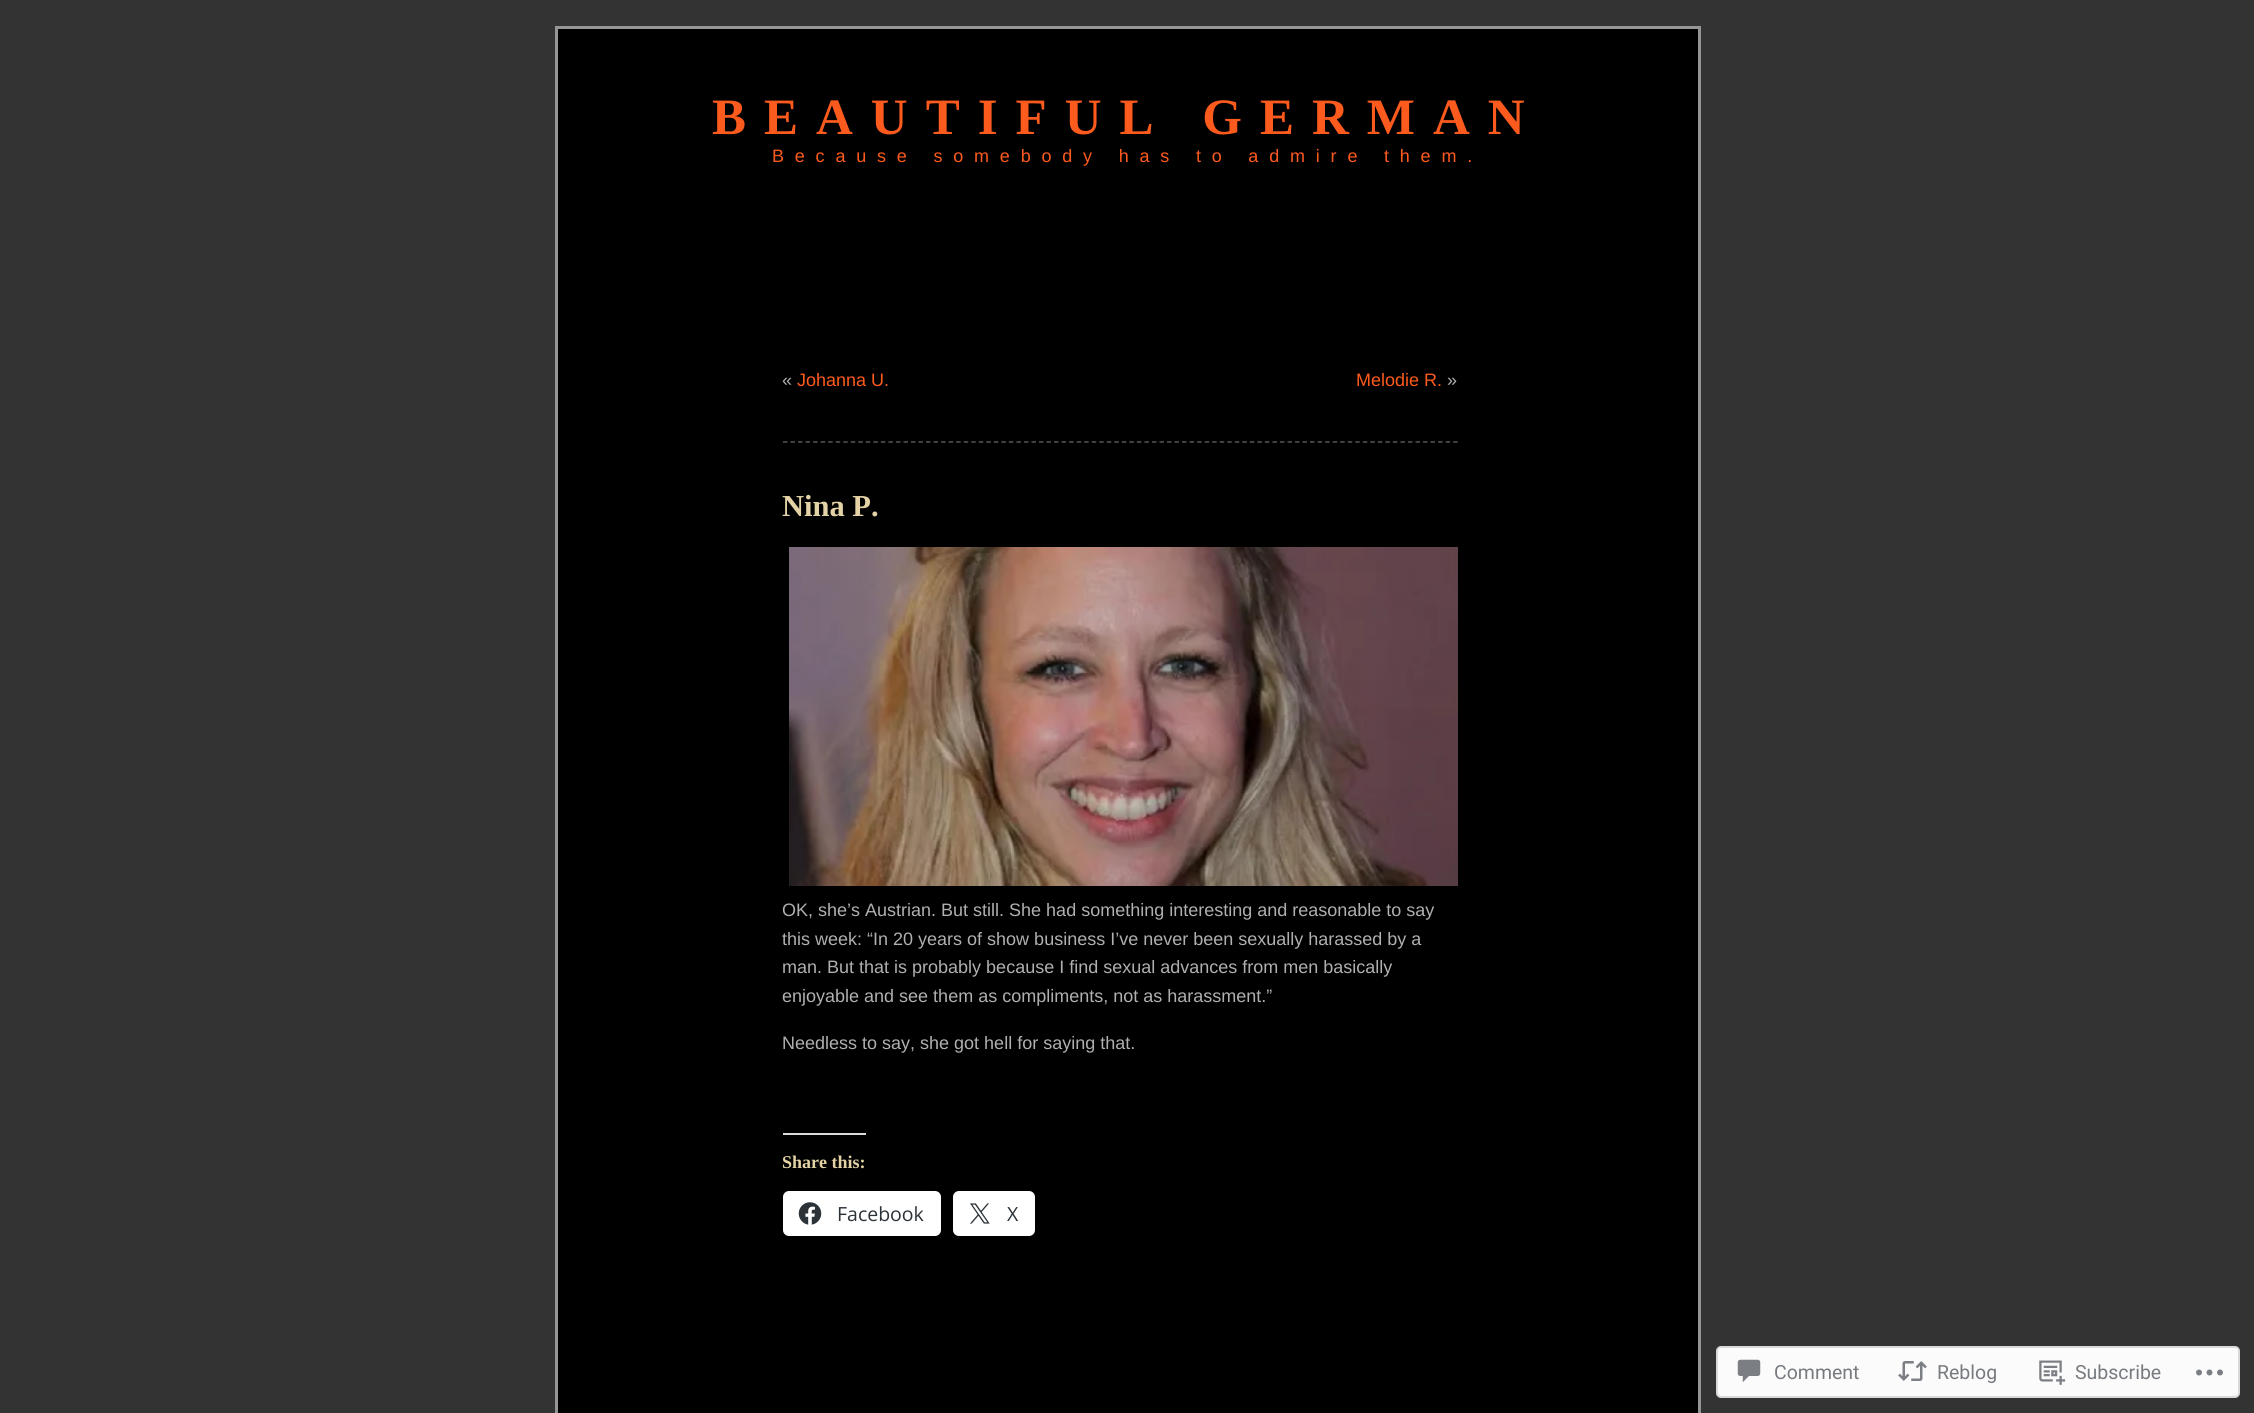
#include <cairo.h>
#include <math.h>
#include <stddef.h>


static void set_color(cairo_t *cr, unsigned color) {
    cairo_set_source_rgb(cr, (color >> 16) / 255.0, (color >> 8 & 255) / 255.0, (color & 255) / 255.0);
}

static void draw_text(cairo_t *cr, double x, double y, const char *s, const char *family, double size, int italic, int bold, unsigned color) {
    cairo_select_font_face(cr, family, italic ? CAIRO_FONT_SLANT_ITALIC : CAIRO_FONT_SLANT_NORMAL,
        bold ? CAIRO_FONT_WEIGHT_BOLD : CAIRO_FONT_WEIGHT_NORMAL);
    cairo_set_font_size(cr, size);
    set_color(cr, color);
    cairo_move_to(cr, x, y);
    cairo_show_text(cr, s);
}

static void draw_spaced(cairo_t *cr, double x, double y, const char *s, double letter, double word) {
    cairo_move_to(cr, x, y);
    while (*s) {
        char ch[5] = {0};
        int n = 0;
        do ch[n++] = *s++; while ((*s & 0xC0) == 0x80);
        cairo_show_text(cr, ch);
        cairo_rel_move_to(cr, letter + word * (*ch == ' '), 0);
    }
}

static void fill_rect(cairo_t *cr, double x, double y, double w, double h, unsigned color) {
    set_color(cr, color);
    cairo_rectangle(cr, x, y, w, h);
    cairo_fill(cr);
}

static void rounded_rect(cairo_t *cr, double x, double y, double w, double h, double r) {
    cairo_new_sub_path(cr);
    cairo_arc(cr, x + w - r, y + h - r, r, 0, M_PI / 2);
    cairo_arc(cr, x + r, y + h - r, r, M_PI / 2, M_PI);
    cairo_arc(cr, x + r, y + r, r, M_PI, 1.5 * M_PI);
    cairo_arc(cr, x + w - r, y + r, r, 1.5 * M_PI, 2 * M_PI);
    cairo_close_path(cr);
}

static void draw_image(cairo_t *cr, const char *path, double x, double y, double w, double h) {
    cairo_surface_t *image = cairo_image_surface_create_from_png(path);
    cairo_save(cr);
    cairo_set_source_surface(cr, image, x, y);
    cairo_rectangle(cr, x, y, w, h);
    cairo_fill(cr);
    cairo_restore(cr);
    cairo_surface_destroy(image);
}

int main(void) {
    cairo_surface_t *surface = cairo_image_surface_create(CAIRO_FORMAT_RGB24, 2254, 1413);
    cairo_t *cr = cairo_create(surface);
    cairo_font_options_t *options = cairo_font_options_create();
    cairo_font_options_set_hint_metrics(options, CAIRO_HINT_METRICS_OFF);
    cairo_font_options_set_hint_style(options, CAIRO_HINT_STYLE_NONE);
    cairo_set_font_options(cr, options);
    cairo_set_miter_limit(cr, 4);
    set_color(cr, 0x333333);
    cairo_paint(cr);
    set_color(cr, 0x000000);
    cairo_rectangle(cr, 556.5, 27.5, 1143, 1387);
    cairo_fill_preserve(cr);
    set_color(cr, 0x959596);
    cairo_set_line_width(cr, 3);
    cairo_stroke(cr);
    cairo_select_font_face(cr, "Liberation Serif", CAIRO_FONT_SLANT_NORMAL, CAIRO_FONT_WEIGHT_BOLD);
    cairo_set_font_size(cr, 51);
    set_color(cr, 0xFD5A1E);
    draw_spaced(cr, 712, 134, "BEAUTIFUL GERMAN", 18, 0);
    cairo_select_font_face(cr, "Liberation Sans", CAIRO_FONT_SLANT_NORMAL, CAIRO_FONT_WEIGHT_NORMAL);
    cairo_set_font_size(cr, 18);
    draw_spaced(cr, 772, 162, "Because somebody has to admire them.", 10.8, 0);
    draw_text(cr, 782, 386, "«", "Liberation Sans", 18, 0, 0, 0xB0B0B0);
    draw_text(cr, 797, 386, "Johanna U.", "Liberation Sans", 18, 0, 0, 0xFD5A1E);
    draw_text(cr, 1356, 386, "Melodie R.", "Liberation Sans", 18, 0, 0, 0xFD5A1E);
    draw_text(cr, 1447, 386, "»", "Liberation Sans", 18, 0, 0, 0xB0B0B0);
    cairo_new_path(cr);
    cairo_move_to(cr, 783, 442);
    cairo_line_to(cr, 1458, 442);
    set_color(cr, 0x555555);
    cairo_set_line_width(cr, 1.5);
    cairo_set_dash(cr, (double[]){4.5, 3.03}, 2, 0);
    cairo_stroke(cr);
    draw_text(cr, 782, 516, "Nina P.", "Liberation Serif", 30.5, 0, 1, 0xE4D3A6);
    draw_image(cr, "assets/img1.png", 789, 547, 669, 339);
    draw_text(cr, 782, 916, "OK, she’s Austrian. But still. She had something interesting and reasonable to say", "Liberation Sans", 18, 0, 0, 0xB0B0B0);
    draw_text(cr, 782, 945, "this week: “In 20 years of show business I’ve never been sexually harassed by a", "Liberation Sans", 18, 0, 0, 0xB0B0B0);
    draw_text(cr, 782, 973, "man. But that is probably because I find sexual advances from men basically", "Liberation Sans", 18, 0, 0, 0xB0B0B0);
    draw_text(cr, 782, 1002, "enjoyable and see them as compliments, not as harassment.”", "Liberation Sans", 18, 0, 0, 0xB0B0B0);
    draw_text(cr, 782, 1049, "Needless to say, she got hell for saying that.", "Liberation Sans", 18, 0, 0, 0xB0B0B0);
    fill_rect(cr, 783, 1133, 83, 2, 0xDCDCDE);
    draw_text(cr, 782, 1168, "Share this:", "Liberation Serif", 18, 0, 1, 0xE4D3A6);
    set_color(cr, 0xFFFFFF);
    rounded_rect(cr, 783, 1191, 158, 45, 6);
    cairo_fill(cr);
    draw_image(cr, "assets/img2.png", 798, 1202, 24, 23);
    draw_text(cr, 837, 1221, "Facebook", "Open Sans", 19.5, 0, 0, 0x2C3338);
    set_color(cr, 0xFFFFFF);
    rounded_rect(cr, 953, 1191, 82, 45, 6);
    cairo_fill(cr);
    draw_image(cr, "assets/img3.png", 970, 1203, 20, 21);
    draw_text(cr, 1007, 1221, "X", "Open Sans", 19.5, 0, 0, 0x2C3338);
    set_color(cr, 0xFBFBFB);
    rounded_rect(cr, 1717, 1347, 522, 50, 4);
    cairo_fill_preserve(cr);
    set_color(cr, 0xD9D9DB);
    cairo_set_line_width(cr, 2);
    cairo_set_dash(cr, NULL, 0, 0);
    cairo_stroke(cr);
    draw_image(cr, "assets/img4.png", 1737, 1359, 24, 24);
    draw_text(cr, 1774, 1379, "Comment", "Roboto", 19.5, 0, 0, 0x777B80);
    draw_image(cr, "assets/img5.png", 1898, 1361, 29, 20);
    draw_text(cr, 1937, 1379, "Reblog", "Roboto", 19.5, 0, 0, 0x777B80);
    draw_image(cr, "assets/img6.png", 2039, 1360, 27, 25);
    draw_text(cr, 2075, 1379, "Subscribe", "Roboto", 19.5, 0, 0, 0x777B80);
    draw_image(cr, "assets/img7.png", 2196, 1369, 27, 7);
    cairo_surface_write_to_png(surface, "output.png");
    cairo_font_options_destroy(options);
    cairo_destroy(cr);
    cairo_surface_destroy(surface);
    return 0;
}
